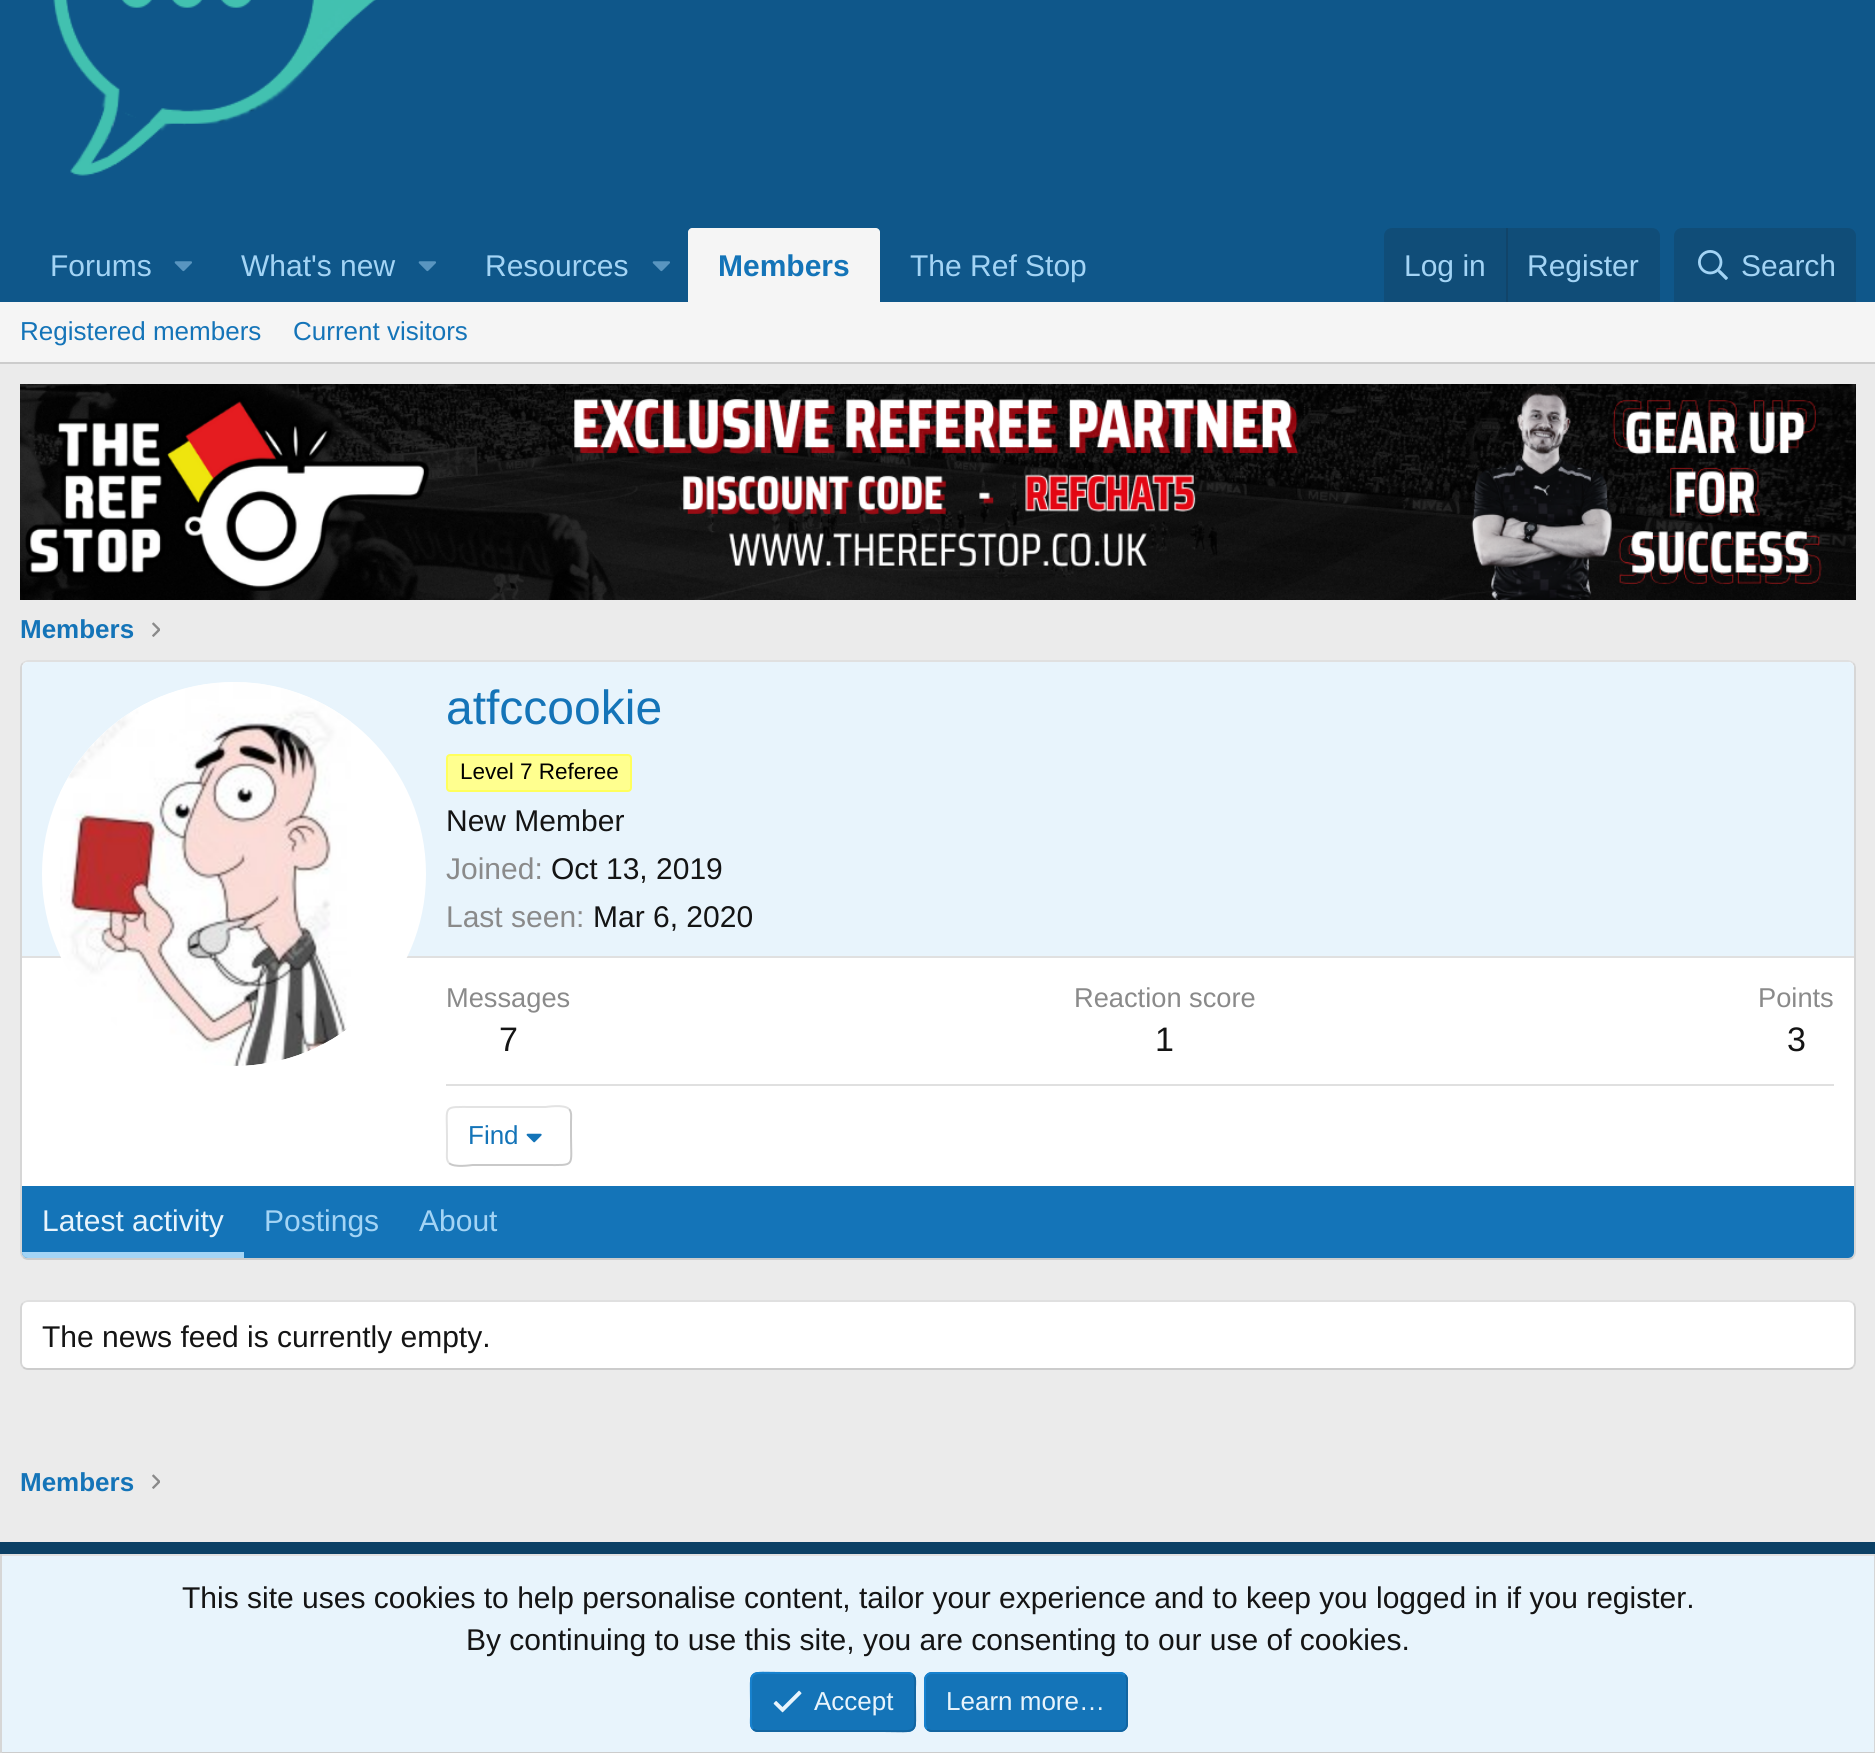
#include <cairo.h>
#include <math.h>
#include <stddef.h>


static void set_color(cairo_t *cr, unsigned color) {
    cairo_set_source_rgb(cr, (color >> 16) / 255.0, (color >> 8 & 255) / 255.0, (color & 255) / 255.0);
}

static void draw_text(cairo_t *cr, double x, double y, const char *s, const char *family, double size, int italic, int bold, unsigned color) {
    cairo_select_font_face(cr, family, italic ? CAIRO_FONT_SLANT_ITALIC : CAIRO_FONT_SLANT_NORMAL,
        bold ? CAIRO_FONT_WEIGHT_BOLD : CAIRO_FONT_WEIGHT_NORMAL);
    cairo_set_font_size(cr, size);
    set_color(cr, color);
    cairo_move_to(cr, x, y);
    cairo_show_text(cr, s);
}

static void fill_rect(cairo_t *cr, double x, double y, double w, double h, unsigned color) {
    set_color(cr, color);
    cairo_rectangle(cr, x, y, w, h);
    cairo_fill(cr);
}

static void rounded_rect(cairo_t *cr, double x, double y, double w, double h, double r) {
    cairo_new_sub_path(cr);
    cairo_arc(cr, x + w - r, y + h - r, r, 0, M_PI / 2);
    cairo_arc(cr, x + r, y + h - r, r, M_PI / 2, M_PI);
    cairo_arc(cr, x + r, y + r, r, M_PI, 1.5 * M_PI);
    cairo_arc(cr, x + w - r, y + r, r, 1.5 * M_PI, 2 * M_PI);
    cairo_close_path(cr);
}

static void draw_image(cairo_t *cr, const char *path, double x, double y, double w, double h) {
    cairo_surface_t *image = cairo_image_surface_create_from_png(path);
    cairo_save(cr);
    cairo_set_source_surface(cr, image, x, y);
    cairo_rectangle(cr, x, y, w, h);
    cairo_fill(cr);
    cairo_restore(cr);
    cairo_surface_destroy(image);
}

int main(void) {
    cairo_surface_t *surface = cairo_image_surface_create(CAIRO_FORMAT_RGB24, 1875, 1753);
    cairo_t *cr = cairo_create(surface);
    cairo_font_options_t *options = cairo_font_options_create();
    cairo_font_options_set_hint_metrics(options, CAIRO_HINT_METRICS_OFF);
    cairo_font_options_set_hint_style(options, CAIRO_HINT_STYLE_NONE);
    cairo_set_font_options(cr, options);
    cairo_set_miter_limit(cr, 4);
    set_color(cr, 0xEBEBEB);
    cairo_paint(cr);
    fill_rect(cr, 0, 0, 1875, 302, 0x0F578A);
    draw_image(cr, "assets/img1.png", 53, 0, 323, 176);
    draw_text(cr, 50, 276, "Forums", "Liberation Sans", 30, 0, 0, 0xA3D4F5);
    draw_image(cr, "assets/img2.png", 174, 261, 18, 11);
    draw_text(cr, 241, 276, "What's new", "Liberation Sans", 30, 0, 0, 0xA3D4F5);
    draw_image(cr, "assets/img2.png", 418, 261, 18, 11);
    draw_text(cr, 485, 276, "Resources", "Liberation Sans", 30, 0, 0, 0xA3D4F5);
    draw_image(cr, "assets/img2.png", 652, 261, 18, 11);
    set_color(cr, 0xF5F5F5);
    cairo_new_path(cr);
    cairo_move_to(cr, 692, 228);
    cairo_line_to(cr, 876, 228);
    cairo_curve_to(cr, 878, 228, 880, 230, 880, 232);
    cairo_line_to(cr, 880, 302);
    cairo_line_to(cr, 688, 302);
    cairo_line_to(cr, 688, 232);
    cairo_curve_to(cr, 688, 230, 690, 228, 692, 228);
    cairo_close_path(cr);
    cairo_fill(cr);
    draw_text(cr, 718, 276, "Members", "Liberation Sans", 30, 0, 1, 0x1474B8);
    draw_text(cr, 910, 276, "The Ref Stop", "Liberation Sans", 30, 0, 0, 0xA3D4F5);
    set_color(cr, 0x104D78);
    cairo_new_path(cr);
    cairo_move_to(cr, 1392, 228);
    cairo_line_to(cr, 1652, 228);
    cairo_curve_to(cr, 1656.5, 228, 1660, 231.5, 1660, 236);
    cairo_line_to(cr, 1660, 302);
    cairo_line_to(cr, 1384, 302);
    cairo_line_to(cr, 1384, 236);
    cairo_curve_to(cr, 1384, 231.5, 1387.5, 228, 1392, 228);
    cairo_close_path(cr);
    cairo_fill(cr);
    draw_text(cr, 1404, 276, "Log in", "Liberation Sans", 30, 0, 0, 0xA3D4F5);
    fill_rect(cr, 1506, 228, 2, 74, 0x114469);
    draw_text(cr, 1527, 276, "Register", "Liberation Sans", 30, 0, 0, 0xA3D4F5);
    set_color(cr, 0x104D78);
    cairo_new_path(cr);
    cairo_move_to(cr, 1682, 228);
    cairo_line_to(cr, 1848, 228);
    cairo_curve_to(cr, 1852.5, 228, 1856, 231.5, 1856, 236);
    cairo_line_to(cr, 1856, 302);
    cairo_line_to(cr, 1674, 302);
    cairo_line_to(cr, 1674, 236);
    cairo_curve_to(cr, 1674, 231.5, 1677.5, 228, 1682, 228);
    cairo_close_path(cr);
    cairo_fill(cr);
    draw_image(cr, "assets/img3.png", 1698, 250, 30, 30);
    draw_text(cr, 1741, 276, "Search", "Liberation Sans", 30, 0, 0, 0xA3D4F5);
    fill_rect(cr, 0, 302, 1875, 60, 0xF5F5F5);
    fill_rect(cr, 0, 362, 1875, 2, 0xCCCCCC);
    draw_text(cr, 20, 340, "Registered members", "Liberation Sans", 26, 0, 0, 0x1474B8);
    draw_text(cr, 293, 340, "Current visitors", "Liberation Sans", 26, 0, 0, 0x1474B8);
    draw_image(cr, "assets/img4.png", 20, 384, 1836, 216);
    draw_text(cr, 20, 638, "Members", "Liberation Sans", 26, 0, 1, 0x1474B8);
    draw_image(cr, "assets/img5.png", 152, 622, 8, 15);
    set_color(cr, 0xFFFFFF);
    rounded_rect(cr, 20, 660, 1836, 600, 8);
    cairo_fill(cr);
    cairo_new_path(cr);
    cairo_move_to(cr, 23, 663);
    cairo_curve_to(cr, 24.5, 661.5, 26, 661, 28, 661);
    cairo_line_to(cr, 1848, 661);
    cairo_curve_to(cr, 1850, 661, 1851.5, 661.5, 1853, 663);
    set_color(cr, 0xE0E0E0);
    cairo_stroke(cr);
    cairo_new_path(cr);
    cairo_move_to(cr, 1853, 663);
    cairo_curve_to(cr, 1854.5, 664.5, 1855, 666, 1855, 668);
    cairo_line_to(cr, 1855, 1252);
    cairo_curve_to(cr, 1855, 1254, 1854.5, 1255.5, 1853, 1257);
    set_color(cr, 0xD6D6D6);
    cairo_stroke(cr);
    cairo_new_path(cr);
    cairo_move_to(cr, 1853, 1257);
    cairo_curve_to(cr, 1851.5, 1258.5, 1850, 1259, 1848, 1259);
    cairo_line_to(cr, 28, 1259);
    cairo_curve_to(cr, 26, 1259, 24.5, 1258.5, 23, 1257);
    set_color(cr, 0xCCCCCC);
    cairo_stroke(cr);
    cairo_new_path(cr);
    cairo_move_to(cr, 23, 1257);
    cairo_curve_to(cr, 21.5, 1255.5, 21, 1254, 21, 1252);
    cairo_line_to(cr, 21, 668);
    cairo_curve_to(cr, 21, 666, 21.5, 664.5, 23, 663);
    set_color(cr, 0xD6D6D6);
    cairo_stroke(cr);
    set_color(cr, 0xE8F4FC);
    cairo_new_path(cr);
    cairo_move_to(cr, 28, 662);
    cairo_line_to(cr, 1848, 662);
    cairo_curve_to(cr, 1851.5, 662, 1854, 664.5, 1854, 668);
    cairo_line_to(cr, 1854, 958);
    cairo_line_to(cr, 22, 958);
    cairo_line_to(cr, 22, 668);
    cairo_curve_to(cr, 22, 664.5, 24.5, 662, 28, 662);
    cairo_close_path(cr);
    cairo_fill(cr);
    fill_rect(cr, 22, 956, 1832, 2, 0xE0E0E0);
    set_color(cr, 0xFFFFFF);
    cairo_arc(cr, 234, 874, 192, 0, 2 * M_PI);
    cairo_fill(cr);
    draw_image(cr, "assets/img6.png", 60, 682, 291, 384);
    draw_text(cr, 446, 724, "atfccookie", "Liberation Sans", 48, 0, 0, 0x1474B8);
    set_color(cr, 0xFFFF8F);
    rounded_rect(cr, 447, 755, 184, 36, 3);
    cairo_fill_preserve(cr);
    set_color(cr, 0xFFFF5C);
    cairo_stroke(cr);
    draw_text(cr, 460, 779, "Level 7 Referee", "Liberation Sans", 22.5, 0, 0, 0x000000);
    draw_text(cr, 446, 831, "New Member", "Liberation Sans", 30, 0, 0, 0x141414);
    draw_text(cr, 446, 879, "Joined:", "Liberation Sans", 30, 0, 0, 0x8A8A8A);
    draw_text(cr, 551, 879, "Oct 13, 2019", "Liberation Sans", 30, 0, 0, 0x141414);
    draw_text(cr, 446, 927, "Last seen:", "Liberation Sans", 30, 0, 0, 0x8A8A8A);
    draw_text(cr, 593, 927, "Mar 6, 2020", "Liberation Sans", 30, 0, 0, 0x141414);
    draw_text(cr, 446, 1007, "Messages", "Liberation Sans", 27.25, 0, 0, 0x8A8A8A);
    draw_text(cr, 499, 1051, "7", "Liberation Sans", 34, 0, 0, 0x141414);
    draw_text(cr, 1074, 1007, "Reaction score", "Liberation Sans", 27.25, 0, 0, 0x8A8A8A);
    draw_text(cr, 1155, 1051, "1", "Liberation Sans", 34, 0, 0, 0x141414);
    draw_text(cr, 1758, 1007, "Points", "Liberation Sans", 27.25, 0, 0, 0x8A8A8A);
    draw_text(cr, 1787, 1051, "3", "Liberation Sans", 34, 0, 0, 0x141414);
    fill_rect(cr, 446, 1084, 1388, 2, 0xE0E0E0);
    cairo_new_path(cr);
    cairo_move_to(cr, 569, 1109);
    cairo_curve_to(cr, 572, 1112, 571, 1117.5, 571, 1121.5);
    cairo_line_to(cr, 571, 1136);
    cairo_curve_to(cr, 571, 1167.5, 576, 1165, 545.5, 1165);
    cairo_line_to(cr, 472.5, 1165);
    cairo_curve_to(cr, 471.5, 1165, 454, 1168, 449, 1163);
    set_color(cr, 0xC9C9C9);
    cairo_stroke(cr);
    cairo_new_path(cr);
    cairo_move_to(cr, 449, 1163);
    cairo_curve_to(cr, 446, 1160, 447, 1154.5, 447, 1150.5);
    cairo_line_to(cr, 447, 1136);
    cairo_curve_to(cr, 447, 1104.5, 442, 1107, 472.5, 1107);
    cairo_line_to(cr, 545.5, 1107);
    cairo_curve_to(cr, 546.5, 1107, 564, 1104, 569, 1109);
    set_color(cr, 0xE3E3E3);
    cairo_stroke(cr);
    draw_text(cr, 468, 1144, "Find", "Liberation Sans", 26, 0, 0, 0x1474B8);
    draw_image(cr, "assets/img7.png", 526, 1133, 16, 10);
    cairo_new_path(cr);
    cairo_move_to(cr, 22, 1186);
    cairo_line_to(cr, 1854, 1186);
    cairo_line_to(cr, 1854, 1252);
    cairo_curve_to(cr, 1854, 1255.5, 1851.5, 1258, 1848, 1258);
    cairo_line_to(cr, 28, 1258);
    cairo_curve_to(cr, 24.5, 1258, 22, 1255.5, 22, 1252);
    cairo_close_path(cr);
    cairo_fill(cr);
    set_color(cr, 0xA3D4F5);
    cairo_new_path(cr);
    cairo_move_to(cr, 22, 1252);
    cairo_line_to(cr, 244, 1252);
    cairo_line_to(cr, 244, 1258);
    cairo_line_to(cr, 28, 1258);
    cairo_curve_to(cr, 24.5, 1258, 22, 1255.5, 22, 1252);
    cairo_close_path(cr);
    cairo_fill(cr);
    draw_text(cr, 42, 1231, "Latest activity", "Liberation Sans", 30, 0, 0, 0xE8F4FC);
    draw_text(cr, 264, 1231, "Postings", "Liberation Sans", 30, 0, 0, 0xA3D4F5);
    draw_text(cr, 419, 1231, "About", "Liberation Sans", 30, 0, 0, 0xA3D4F5);
    set_color(cr, 0xFFFFFF);
    rounded_rect(cr, 20, 1300, 1836, 70, 8);
    cairo_fill(cr);
    cairo_new_path(cr);
    cairo_move_to(cr, 23, 1303);
    cairo_curve_to(cr, 24.5, 1301.5, 26, 1301, 28, 1301);
    cairo_line_to(cr, 1848, 1301);
    cairo_curve_to(cr, 1850, 1301, 1851.5, 1301.5, 1853, 1303);
    set_color(cr, 0xE0E0E0);
    cairo_stroke(cr);
    cairo_new_path(cr);
    cairo_move_to(cr, 1853, 1303);
    cairo_curve_to(cr, 1854.5, 1304.5, 1855, 1306, 1855, 1308);
    cairo_line_to(cr, 1855, 1362);
    cairo_curve_to(cr, 1855, 1364, 1854.5, 1365.5, 1853, 1367);
    set_color(cr, 0xD6D6D6);
    cairo_stroke(cr);
    cairo_new_path(cr);
    cairo_move_to(cr, 1853, 1367);
    cairo_curve_to(cr, 1851.5, 1368.5, 1850, 1369, 1848, 1369);
    cairo_line_to(cr, 28, 1369);
    cairo_curve_to(cr, 26, 1369, 24.5, 1368.5, 23, 1367);
    set_color(cr, 0xCCCCCC);
    cairo_stroke(cr);
    cairo_new_path(cr);
    cairo_move_to(cr, 23, 1367);
    cairo_curve_to(cr, 21.5, 1365.5, 21, 1364, 21, 1362);
    cairo_line_to(cr, 21, 1308);
    cairo_curve_to(cr, 21, 1306, 21.5, 1304.5, 23, 1303);
    set_color(cr, 0xD6D6D6);
    cairo_stroke(cr);
    draw_text(cr, 42, 1347, "The news feed is currently empty.", "Liberation Sans", 30, 0, 0, 0x141414);
    draw_text(cr, 20, 1491, "Members", "Liberation Sans", 26, 0, 1, 0x1474B8);
    draw_image(cr, "assets/img5.png", 152, 1474, 8, 15);
    fill_rect(cr, 0, 1542, 1875, 12, 0x0B4065);
    fill_rect(cr, 2, 1556, 1872, 196, 0xE8F4FC);
    fill_rect(cr, 0, 1554, 1875, 2, 0xE0E0E0);
    fill_rect(cr, 1874, 1554, 1, 199, 0xD6D6D6);
    fill_rect(cr, 0, 1752, 1875, 1, 0xCCCCCC);
    fill_rect(cr, 0, 1554, 2, 199, 0xD6D6D6);
    draw_text(cr, 182, 1608, "This site uses cookies to help personalise content, tailor your experience and to keep you logged in if you register.", "Liberation Sans", 30, 0, 0, 0x141414);
    draw_text(cr, 466, 1650, "By continuing to use this site, you are consenting to our use of cookies.", "Liberation Sans", 30, 0, 0, 0x141414);
    set_color(cr, 0x1474B8);
    rounded_rect(cr, 750, 1672, 166, 60, 8);
    cairo_fill(cr);
    cairo_new_path(cr);
    cairo_move_to(cr, 913, 1675);
    cairo_curve_to(cr, 916, 1678, 915, 1683.5, 915, 1687.5);
    cairo_line_to(cr, 915, 1702);
    cairo_curve_to(cr, 915, 1736, 919.5, 1731, 883, 1731);
    cairo_line_to(cr, 758, 1731);
    cairo_curve_to(cr, 756, 1731, 754.5, 1730.5, 753, 1729);
    set_color(cr, 0x1265A1);
    cairo_stroke(cr);
    cairo_new_path(cr);
    cairo_move_to(cr, 753, 1729);
    cairo_curve_to(cr, 750, 1726, 751, 1720.5, 751, 1716.5);
    cairo_line_to(cr, 751, 1702);
    cairo_curve_to(cr, 751, 1668, 746.5, 1673, 783, 1673);
    cairo_line_to(cr, 908, 1673);
    cairo_curve_to(cr, 910, 1673, 911.5, 1673.5, 913, 1675);
    set_color(cr, 0x1782CF);
    cairo_stroke(cr);
    draw_image(cr, "assets/img8.png", 773, 1690, 29, 23);
    draw_text(cr, 814, 1710, "Accept", "Liberation Sans", 26, 0, 0, 0xE8F4FC);
    set_color(cr, 0x1474B8);
    rounded_rect(cr, 924, 1672, 204, 60, 8);
    cairo_fill(cr);
    cairo_new_path(cr);
    cairo_move_to(cr, 1125, 1675);
    cairo_curve_to(cr, 1126.5, 1676.5, 1127, 1678, 1127, 1680);
    cairo_line_to(cr, 1127, 1724);
    cairo_curve_to(cr, 1127, 1726, 1126.5, 1727.5, 1125, 1729);
    cairo_curve_to(cr, 1123.5, 1730.5, 1122, 1731, 1120, 1731);
    cairo_line_to(cr, 932, 1731);
    cairo_curve_to(cr, 930, 1731, 928.5, 1730.5, 927, 1729);
    set_color(cr, 0x1265A1);
    cairo_stroke(cr);
    cairo_new_path(cr);
    cairo_move_to(cr, 927, 1729);
    cairo_curve_to(cr, 925.5, 1727.5, 925, 1726, 925, 1724);
    cairo_line_to(cr, 925, 1680);
    cairo_curve_to(cr, 925, 1678, 925.5, 1676.5, 927, 1675);
    cairo_curve_to(cr, 928.5, 1673.5, 930, 1673, 932, 1673);
    cairo_line_to(cr, 1120, 1673);
    cairo_curve_to(cr, 1122, 1673, 1123.5, 1673.5, 1125, 1675);
    set_color(cr, 0x1782CF);
    cairo_stroke(cr);
    draw_text(cr, 946, 1710, "Learn more…", "Liberation Sans", 26, 0, 0, 0xE8F4FC);
    cairo_surface_write_to_png(surface, "output.png");
    cairo_font_options_destroy(options);
    cairo_destroy(cr);
    cairo_surface_destroy(surface);
    return 0;
}
